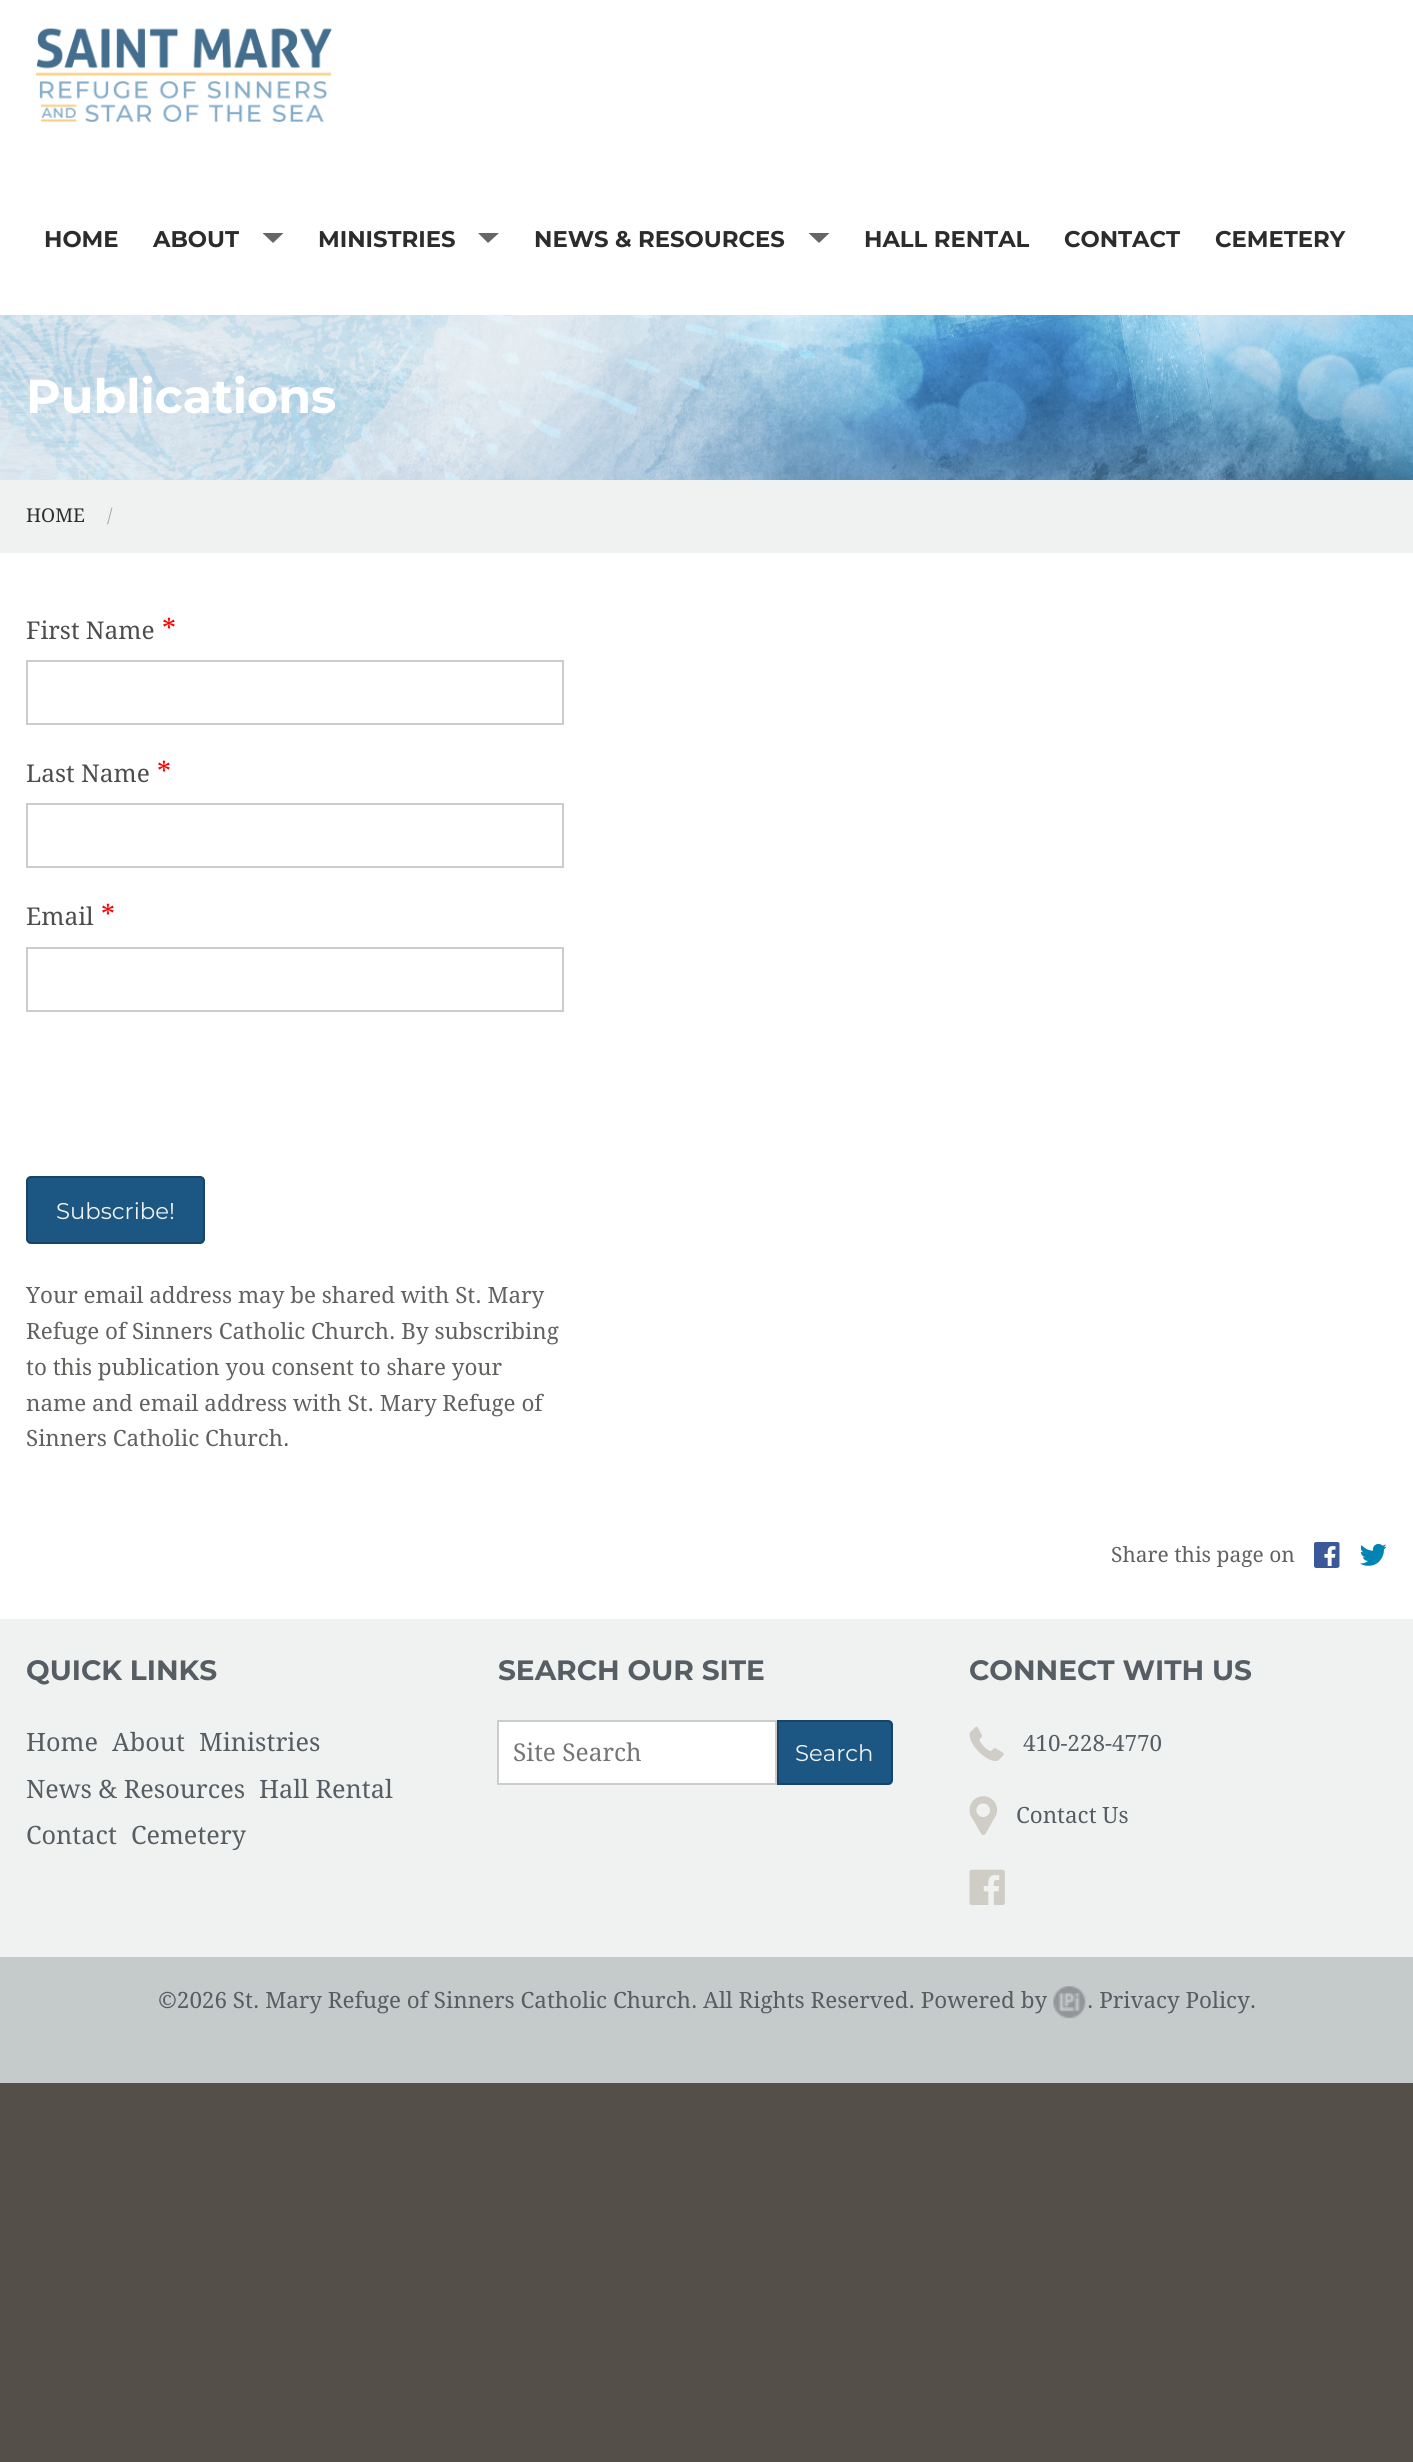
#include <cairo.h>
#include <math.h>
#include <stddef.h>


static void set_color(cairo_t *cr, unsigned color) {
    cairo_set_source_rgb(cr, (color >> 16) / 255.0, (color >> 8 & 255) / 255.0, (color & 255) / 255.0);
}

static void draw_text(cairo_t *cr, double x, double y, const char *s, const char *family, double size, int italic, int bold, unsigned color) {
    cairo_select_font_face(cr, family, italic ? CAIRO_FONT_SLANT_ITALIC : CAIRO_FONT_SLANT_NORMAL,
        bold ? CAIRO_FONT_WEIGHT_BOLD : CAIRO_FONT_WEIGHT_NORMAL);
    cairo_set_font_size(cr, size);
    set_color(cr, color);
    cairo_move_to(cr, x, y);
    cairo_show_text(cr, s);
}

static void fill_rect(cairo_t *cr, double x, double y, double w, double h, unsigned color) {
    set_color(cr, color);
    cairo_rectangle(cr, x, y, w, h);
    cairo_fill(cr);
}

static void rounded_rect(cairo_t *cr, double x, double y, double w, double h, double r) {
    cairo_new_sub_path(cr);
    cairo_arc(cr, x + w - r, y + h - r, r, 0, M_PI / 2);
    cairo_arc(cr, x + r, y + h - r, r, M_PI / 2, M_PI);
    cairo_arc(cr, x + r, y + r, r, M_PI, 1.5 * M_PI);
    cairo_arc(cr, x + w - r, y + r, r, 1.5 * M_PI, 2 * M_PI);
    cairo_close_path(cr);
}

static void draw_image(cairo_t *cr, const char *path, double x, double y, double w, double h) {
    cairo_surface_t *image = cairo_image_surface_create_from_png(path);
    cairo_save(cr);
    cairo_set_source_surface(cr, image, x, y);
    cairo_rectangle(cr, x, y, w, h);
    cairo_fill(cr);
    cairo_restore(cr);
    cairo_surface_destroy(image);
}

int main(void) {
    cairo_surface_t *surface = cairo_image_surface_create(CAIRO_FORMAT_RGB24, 1413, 2462);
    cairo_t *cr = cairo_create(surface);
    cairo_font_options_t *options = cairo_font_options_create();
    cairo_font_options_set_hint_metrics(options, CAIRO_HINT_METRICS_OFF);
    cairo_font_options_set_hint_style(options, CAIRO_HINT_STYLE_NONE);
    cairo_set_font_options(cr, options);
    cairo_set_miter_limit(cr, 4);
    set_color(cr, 0x544F48);
    cairo_paint(cr);
    fill_rect(cr, 0, 0, 1413, 315, 0xFFFFFF);
    draw_image(cr, "assets/img1.png", 36, 27, 296, 95);
    draw_text(cr, 44, 247, "HOME", "Montserrat", 22.75, 0, 1, 0x2C2C2A);
    draw_text(cr, 153, 247, "ABOUT", "Montserrat", 22.75, 0, 1, 0x2C2C2A);
    set_color(cr, 0x666666);
    cairo_new_path(cr);
    cairo_move_to(cr, 262.5, 233);
    cairo_line_to(cr, 283.5, 233);
    cairo_line_to(cr, 273, 243);
    cairo_close_path(cr);
    cairo_fill(cr);
    draw_text(cr, 318, 247, "MINISTRIES", "Montserrat", 22.75, 0, 1, 0x2C2C2A);
    set_color(cr, 0x666666);
    cairo_new_path(cr);
    cairo_move_to(cr, 478, 233);
    cairo_line_to(cr, 499, 233);
    cairo_line_to(cr, 488, 243);
    cairo_close_path(cr);
    cairo_fill(cr);
    draw_text(cr, 534, 247, "NEWS & RESOURCES", "Montserrat", 22.75, 0, 1, 0x2C2C2A);
    set_color(cr, 0x666666);
    cairo_new_path(cr);
    cairo_move_to(cr, 808.5, 233);
    cairo_line_to(cr, 829.5, 233);
    cairo_line_to(cr, 819, 243);
    cairo_close_path(cr);
    cairo_fill(cr);
    draw_text(cr, 864, 247, "HALL RENTAL", "Montserrat", 22.75, 0, 1, 0x2C2C2A);
    draw_text(cr, 1064, 247, "CONTACT", "Montserrat", 22.75, 0, 1, 0x2C2C2A);
    draw_text(cr, 1215, 247, "CEMETERY", "Montserrat", 22.75, 0, 1, 0x2C2C2A);
    draw_image(cr, "assets/img2.png", 0, 315, 1413, 165);
    draw_text(cr, 26, 413, "Publications", "Montserrat", 47.5, 0, 1, 0xFFFFFF);
    fill_rect(cr, 0, 480, 1413, 73, 0xF0F2F2);
    draw_text(cr, 26, 522, "HOME", "Droid Serif", 19, 0, 0, 0x2C2C2A);
    draw_text(cr, 107, 522, "/", "Droid Serif", 19, 0, 0, 0xAAAAAA);
    fill_rect(cr, 0, 553, 1413, 1066, 0xFFFFFF);
    draw_text(cr, 26, 639, "First Name", "Droid Serif", 24.5, 0, 0, 0x4D4D4D);
    draw_text(cr, 162, 639, "*", "Droid Serif", 28, 0, 0, 0xFF0000);
    cairo_rectangle(cr, 27, 661, 536, 63);
    set_color(cr, 0xCCCCCC);
    cairo_stroke(cr);
    draw_text(cr, 26, 782, "Last Name", "Droid Serif", 24.5, 0, 0, 0x4D4D4D);
    draw_text(cr, 157, 782, "*", "Droid Serif", 28, 0, 0, 0xFF0000);
    cairo_rectangle(cr, 27, 804, 536, 63);
    set_color(cr, 0xCCCCCC);
    cairo_stroke(cr);
    draw_text(cr, 26, 925, "Email", "Droid Serif", 24.5, 0, 0, 0x4D4D4D);
    draw_text(cr, 101, 925, "*", "Droid Serif", 28, 0, 0, 0xFF0000);
    cairo_rectangle(cr, 27, 948, 536, 63);
    set_color(cr, 0xCCCCCC);
    cairo_stroke(cr);
    set_color(cr, 0x1C5682);
    rounded_rect(cr, 26, 1176, 179, 68, 5);
    cairo_fill(cr);
    rounded_rect(cr, 27, 1177, 177, 66, 4);
    cairo_set_source_rgba(cr, 0, 0, 0, 0.2);
    cairo_stroke(cr);
    draw_text(cr, 56, 1219, "Subscribe!", "Montserrat", 22.75, 0, 0, 0xF0F2F2);
    draw_text(cr, 26, 1303, "Your email address may be shared with St. Mary", "Droid Serif", 22.4, 0, 0, 0x63615F);
    draw_text(cr, 26, 1339, "Refuge of Sinners Catholic Church. By subscribing", "Droid Serif", 22.4, 0, 0, 0x63615F);
    draw_text(cr, 26, 1375, "to this publication you consent to share your", "Droid Serif", 22.4, 0, 0, 0x63615F);
    draw_text(cr, 26, 1411, "name and email address with St. Mary Refuge of", "Droid Serif", 22.4, 0, 0, 0x63615F);
    draw_text(cr, 26, 1446, "Sinners Catholic Church.", "Droid Serif", 22.4, 0, 0, 0x63615F);
    draw_text(cr, 1111, 1562, "Share this page on", "Droid Serif", 21, 0, 0, 0x63615F);
    rounded_rect(cr, 1315, 1543, 23, 24, 1.5);
    set_color(cr, 0x3B5998);
    cairo_stroke(cr);
    draw_image(cr, "assets/img3.png", 1314, 1542, 26, 26);
    draw_image(cr, "assets/img4.png", 1359, 1543, 28, 23);
    fill_rect(cr, 0, 1619, 1413, 338, 0xF0F2F2);
    draw_text(cr, 26, 1680, "QUICK LINKS", "Montserrat", 28, 0, 1, 0x565D63);
    draw_text(cr, 26, 1751, "Home", "Droid Serif", 25.25, 0, 0, 0x565D63);
    draw_text(cr, 112, 1751, "About", "Droid Serif", 25.25, 0, 0, 0x565D63);
    draw_text(cr, 199, 1751, "Ministries", "Droid Serif", 25.25, 0, 0, 0x565D63);
    draw_text(cr, 26, 1798, "News & Resources", "Droid Serif", 25.25, 0, 0, 0x565D63);
    draw_text(cr, 259, 1798, "Hall Rental", "Droid Serif", 25.25, 0, 0, 0x565D63);
    draw_text(cr, 26, 1844, "Contact", "Droid Serif", 25.25, 0, 0, 0x565D63);
    draw_text(cr, 131, 1844, "Cemetery", "Droid Serif", 25.25, 0, 0, 0x565D63);
    draw_text(cr, 498, 1680, "SEARCH OUR SITE", "Montserrat", 28, 0, 1, 0x565D63);
    set_color(cr, 0xFFFFFF);
    cairo_rectangle(cr, 498, 1721, 278, 63);
    cairo_fill_preserve(cr);
    set_color(cr, 0xCCCCCC);
    cairo_stroke(cr);
    draw_text(cr, 513, 1761, "Site Search", "Droid Serif", 24.5, 0, 0, 0x757575);
    set_color(cr, 0x1C5682);
    cairo_new_path(cr);
    cairo_move_to(cr, 777, 1720);
    cairo_line_to(cr, 888, 1720);
    cairo_curve_to(cr, 891, 1720, 893, 1722, 893, 1725);
    cairo_line_to(cr, 893, 1780);
    cairo_curve_to(cr, 893, 1783, 891, 1785, 888, 1785);
    cairo_line_to(cr, 777, 1785);
    cairo_close_path(cr);
    cairo_fill(cr);
    cairo_new_path(cr);
    cairo_move_to(cr, 778, 1721);
    cairo_line_to(cr, 888, 1721);
    cairo_curve_to(cr, 890, 1721, 892, 1723, 892, 1725);
    cairo_line_to(cr, 892, 1780);
    cairo_curve_to(cr, 892, 1782, 890, 1784, 888, 1784);
    cairo_line_to(cr, 778, 1784);
    cairo_close_path(cr);
    cairo_set_source_rgba(cr, 0, 0, 0, 0.2);
    cairo_stroke(cr);
    draw_text(cr, 795, 1761, "Search", "Montserrat", 22.75, 0, 0, 0xF0F2F2);
    draw_text(cr, 969, 1680, "CONNECT WITH US", "Montserrat", 28, 0, 1, 0x565D63);
    draw_image(cr, "assets/img5.png", 969, 1726, 35, 35);
    draw_text(cr, 1023, 1751, "410-228-4770", "Droid Serif", 22.4, 0, 0, 0x565D63);
    draw_image(cr, "assets/img6.png", 969, 1796, 29, 39);
    draw_text(cr, 1016, 1823, "Contact Us", "Droid Serif", 22.4, 0, 0, 0x565D63);
    draw_image(cr, "assets/img7.png", 969, 1869, 36, 36);
    fill_rect(cr, 0, 1957, 1413, 126, 0xC5CBCB);
    draw_text(cr, 158, 2008, "©2026 St. Mary Refuge of Sinners Catholic Church. All Rights Reserved. Powered by", "Droid Serif", 22.4, 0, 0, 0x565D63);
    draw_image(cr, "assets/img8.png", 1053, 1986, 33, 33);
    draw_text(cr, 1087, 2008, ". Privacy Policy.", "Droid Serif", 22.4, 0, 0, 0x565D63);
    cairo_surface_write_to_png(surface, "output.png");
    cairo_font_options_destroy(options);
    cairo_destroy(cr);
    cairo_surface_destroy(surface);
    return 0;
}
